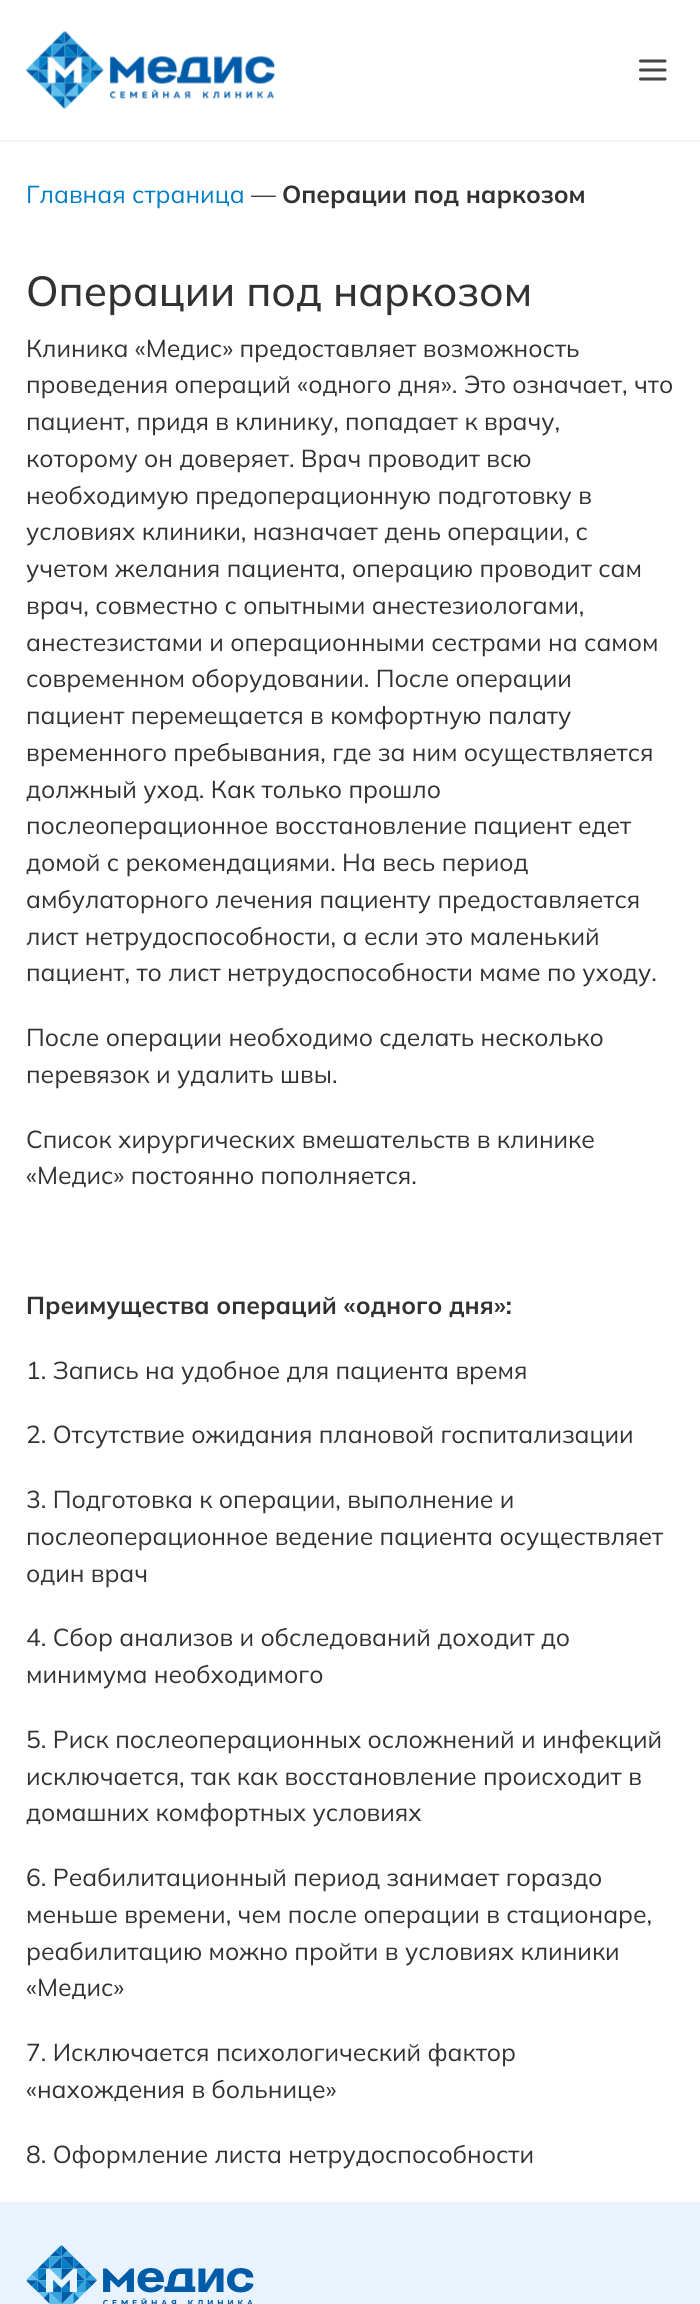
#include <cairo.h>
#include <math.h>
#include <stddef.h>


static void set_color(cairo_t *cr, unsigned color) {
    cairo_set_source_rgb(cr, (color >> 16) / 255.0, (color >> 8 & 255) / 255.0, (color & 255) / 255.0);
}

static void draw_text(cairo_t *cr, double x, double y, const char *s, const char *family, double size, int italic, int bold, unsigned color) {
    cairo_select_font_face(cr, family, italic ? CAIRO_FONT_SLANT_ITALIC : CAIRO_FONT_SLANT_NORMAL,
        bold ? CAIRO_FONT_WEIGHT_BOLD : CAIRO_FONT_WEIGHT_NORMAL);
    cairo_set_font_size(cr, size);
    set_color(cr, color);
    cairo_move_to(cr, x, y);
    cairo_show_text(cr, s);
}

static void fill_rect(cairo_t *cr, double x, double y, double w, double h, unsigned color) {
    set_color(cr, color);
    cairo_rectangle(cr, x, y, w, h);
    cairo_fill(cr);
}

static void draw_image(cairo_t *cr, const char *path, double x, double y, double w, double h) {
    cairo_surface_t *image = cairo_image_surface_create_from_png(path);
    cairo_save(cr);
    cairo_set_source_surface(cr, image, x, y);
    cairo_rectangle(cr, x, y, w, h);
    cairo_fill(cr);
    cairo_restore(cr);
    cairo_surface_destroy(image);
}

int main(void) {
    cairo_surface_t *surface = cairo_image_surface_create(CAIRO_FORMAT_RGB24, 700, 2304);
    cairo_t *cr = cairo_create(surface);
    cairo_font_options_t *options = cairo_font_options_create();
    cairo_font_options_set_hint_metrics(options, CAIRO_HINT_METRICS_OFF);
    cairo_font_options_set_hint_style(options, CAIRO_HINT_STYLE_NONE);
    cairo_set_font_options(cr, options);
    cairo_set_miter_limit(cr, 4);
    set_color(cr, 0xFFFFFF);
    cairo_paint(cr);
    fill_rect(cr, 0, 140, 700, 2, 0xF0F6FA);
    draw_image(cr, "assets/img1.png", 26, 31, 249, 78);
    cairo_new_path(cr);
    cairo_move_to(cr, 640.5, 61);
    cairo_line_to(cr, 665, 61);
    cairo_move_to(cr, 640.5, 70);
    cairo_line_to(cr, 665, 70);
    cairo_move_to(cr, 640.5, 79);
    cairo_line_to(cr, 665, 79);
    set_color(cr, 0x454647);
    cairo_set_line_width(cr, 3.1);
    cairo_set_line_cap(cr, CAIRO_LINE_CAP_ROUND);
    cairo_stroke(cr);
    draw_text(cr, 26, 203, "Главная страница", "Mulish", 24.5, 0, 0, 0x007EC3);
    draw_text(cr, 251, 203, "—", "Mulish", 24.5, 0, 0, 0x323232);
    draw_text(cr, 282, 203, "Операции под наркозом", "Mulish", 24.5, 0, 1, 0x323232);
    draw_text(cr, 26, 306, "Операции под наркозом", "Mulish Medium", 42, 0, 0, 0x323232);
    draw_text(cr, 26, 357, "Клиника «Медис» предоставляет возможность", "Mulish", 24.5, 0, 0, 0x323232);
    draw_text(cr, 26, 393, "проведения операций «одного дня». Это означает, что", "Mulish", 24.5, 0, 0, 0x323232);
    draw_text(cr, 26, 430, "пациент, придя в клинику, попадает к врачу,", "Mulish", 24.5, 0, 0, 0x323232);
    draw_text(cr, 26, 467, "которому он доверяет. Врач проводит всю", "Mulish", 24.5, 0, 0, 0x323232);
    draw_text(cr, 26, 504, "необходимую предоперационную подготовку в", "Mulish", 24.5, 0, 0, 0x323232);
    draw_text(cr, 26, 540, "условиях клиники, назначает день операции, с", "Mulish", 24.5, 0, 0, 0x323232);
    draw_text(cr, 26, 577, "учетом желания пациента, операцию проводит сам", "Mulish", 24.5, 0, 0, 0x323232);
    draw_text(cr, 26, 614, "врач, совместно с опытными анестезиологами,", "Mulish", 24.5, 0, 0, 0x323232);
    draw_text(cr, 26, 651, "анестезистами и операционными сестрами на самом", "Mulish", 24.5, 0, 0, 0x323232);
    draw_text(cr, 26, 687, "современном оборудовании. После операции", "Mulish", 24.5, 0, 0, 0x323232);
    draw_text(cr, 26, 724, "пациент перемещается в комфортную палату", "Mulish", 24.5, 0, 0, 0x323232);
    draw_text(cr, 26, 761, "временного пребывания, где за ним осуществляется", "Mulish", 24.5, 0, 0, 0x323232);
    draw_text(cr, 26, 798, "должный уход. Как только прошло", "Mulish", 24.5, 0, 0, 0x323232);
    draw_text(cr, 26, 834, "послеоперационное восстановление пациент едет", "Mulish", 24.5, 0, 0, 0x323232);
    draw_text(cr, 26, 871, "домой с рекомендациями. На весь период", "Mulish", 24.5, 0, 0, 0x323232);
    draw_text(cr, 26, 908, "амбулаторного лечения пациенту предоставляется", "Mulish", 24.5, 0, 0, 0x323232);
    draw_text(cr, 26, 945, "лист нетрудоспособности, а если это маленький", "Mulish", 24.5, 0, 0, 0x323232);
    draw_text(cr, 26, 981, "пациент, то лист нетрудоспособности маме по уходу.", "Mulish", 24.5, 0, 0, 0x323232);
    draw_text(cr, 26, 1046, "После операции необходимо сделать несколько", "Mulish", 24.5, 0, 0, 0x323232);
    draw_text(cr, 26, 1083, "перевязок и удалить швы.", "Mulish", 24.5, 0, 0, 0x323232);
    draw_text(cr, 26, 1148, "Список хирургических вмешательств в клинике", "Mulish", 24.5, 0, 0, 0x323232);
    draw_text(cr, 26, 1184, "«Медис» постоянно пополняется.", "Mulish", 24.5, 0, 0, 0x323232);
    draw_text(cr, 26, 1314, "Преимущества операций «одного дня»:", "Mulish", 24.5, 0, 1, 0x323232);
    draw_text(cr, 26, 1379, "1. Запись на удобное для пациента время", "Mulish", 24.5, 0, 0, 0x323232);
    draw_text(cr, 26, 1443, "2. Отсутствие ожидания плановой госпитализации", "Mulish", 24.5, 0, 0, 0x323232);
    draw_text(cr, 26, 1508, "3. Подготовка к операции, выполнение и", "Mulish", 24.5, 0, 0, 0x323232);
    draw_text(cr, 26, 1545, "послеоперационное ведение пациента осуществляет", "Mulish", 24.5, 0, 0, 0x323232);
    draw_text(cr, 26, 1582, "один врач", "Mulish", 24.5, 0, 0, 0x323232);
    draw_text(cr, 26, 1646, "4. Сбор анализов и обследований доходит до", "Mulish", 24.5, 0, 0, 0x323232);
    draw_text(cr, 26, 1683, "минимума необходимого", "Mulish", 24.5, 0, 0, 0x323232);
    draw_text(cr, 26, 1748, "5. Риск послеоперационных осложнений и инфекций", "Mulish", 24.5, 0, 0, 0x323232);
    draw_text(cr, 26, 1785, "исключается, так как восстановление происходит в", "Mulish", 24.5, 0, 0, 0x323232);
    draw_text(cr, 26, 1821, "домашних комфортных условиях", "Mulish", 24.5, 0, 0, 0x323232);
    draw_text(cr, 26, 1886, "6. Реабилитационный период занимает гораздо", "Mulish", 24.5, 0, 0, 0x323232);
    draw_text(cr, 26, 1923, "меньше времени, чем после операции в стационаре,", "Mulish", 24.5, 0, 0, 0x323232);
    draw_text(cr, 26, 1960, "реабилитацию можно пройти в условиях клиники", "Mulish", 24.5, 0, 0, 0x323232);
    draw_text(cr, 26, 1996, "«Медис»", "Mulish", 24.5, 0, 0, 0x323232);
    draw_text(cr, 26, 2061, "7. Исключается психологический фактор", "Mulish", 24.5, 0, 0, 0x323232);
    draw_text(cr, 26, 2098, "«нахождения в больнице»", "Mulish", 24.5, 0, 0, 0x323232);
    draw_text(cr, 26, 2163, "8. Оформление листа нетрудоспособности", "Mulish", 24.5, 0, 0, 0x323232);
    fill_rect(cr, 0, 2202, 700, 102, 0xE9F3FE);
    draw_image(cr, "assets/img2.png", 26, 2245, 228, 59);
    cairo_surface_write_to_png(surface, "output.png");
    cairo_font_options_destroy(options);
    cairo_destroy(cr);
    cairo_surface_destroy(surface);
    return 0;
}
